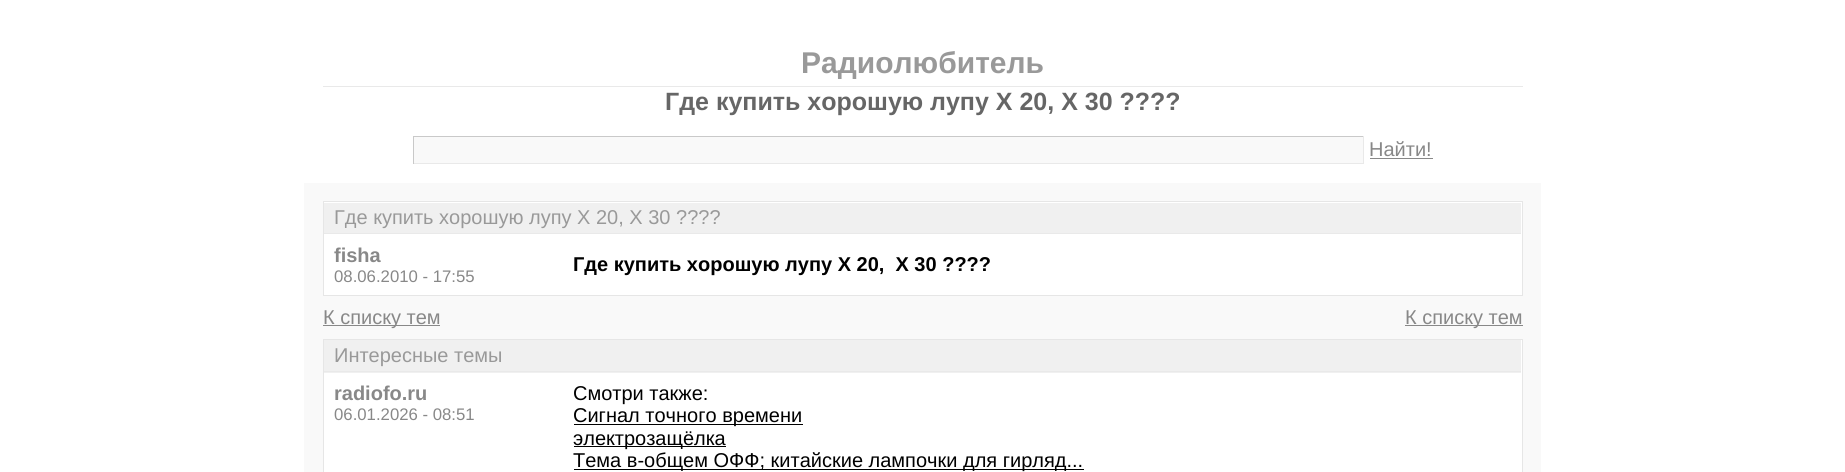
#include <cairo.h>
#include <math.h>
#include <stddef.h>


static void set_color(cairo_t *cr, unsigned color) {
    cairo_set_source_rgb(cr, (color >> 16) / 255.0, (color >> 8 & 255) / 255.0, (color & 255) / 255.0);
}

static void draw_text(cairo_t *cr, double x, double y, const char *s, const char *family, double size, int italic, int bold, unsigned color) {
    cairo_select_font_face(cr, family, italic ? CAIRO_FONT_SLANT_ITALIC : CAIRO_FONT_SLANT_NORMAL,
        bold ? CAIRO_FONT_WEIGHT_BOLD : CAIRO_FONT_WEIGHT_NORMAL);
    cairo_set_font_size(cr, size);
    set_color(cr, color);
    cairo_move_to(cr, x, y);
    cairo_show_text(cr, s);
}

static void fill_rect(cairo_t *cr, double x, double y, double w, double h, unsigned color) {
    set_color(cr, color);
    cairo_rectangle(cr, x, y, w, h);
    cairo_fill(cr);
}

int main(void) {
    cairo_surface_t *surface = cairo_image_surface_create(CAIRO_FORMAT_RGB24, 1845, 472);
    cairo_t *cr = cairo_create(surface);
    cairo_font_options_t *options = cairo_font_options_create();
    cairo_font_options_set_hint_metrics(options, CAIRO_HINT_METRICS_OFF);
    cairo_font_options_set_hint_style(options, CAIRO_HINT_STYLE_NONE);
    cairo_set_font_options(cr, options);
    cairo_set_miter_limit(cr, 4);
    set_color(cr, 0xFFFFFF);
    cairo_paint(cr);
    fill_rect(cr, 323, 86, 1200, 1, 0xE9E9E9);
    draw_text(cr, 801, 73, "Радиолюбитель", "Liberation Sans", 30, 0, 1, 0x999999);
    draw_text(cr, 665, 110, "Где купить хорошую лупу Х 20, Х 30 ?\077?\077", "Liberation Sans", 25, 0, 1, 0x666666);
    fill_rect(cr, 414, 137, 949, 26, 0xF9F9F9);
    fill_rect(cr, 413, 136, 951, 1, 0xC9C9C9);
    fill_rect(cr, 1363, 136, 1, 28, 0xE9E9E9);
    fill_rect(cr, 413, 163, 951, 1, 0xE9E9E9);
    fill_rect(cr, 413, 136, 1, 28, 0xC9C9C9);
    draw_text(cr, 1369, 156, "Найти!", "Liberation Sans", 20, 0, 0, 0x888888);
    fill_rect(cr, 1370, 158, 63, 1, 0x888888);
    fill_rect(cr, 304, 183, 1237, 289, 0xF9F9F9);
    set_color(cr, 0xFFFFFF);
    cairo_rectangle(cr, 323.5, 201.5, 1199, 94);
    cairo_fill_preserve(cr);
    set_color(cr, 0xE6E6E6);
    cairo_set_line_width(cr, 1);
    cairo_stroke(cr);
    fill_rect(cr, 324, 203, 1197, 30, 0xF0F0F0);
    fill_rect(cr, 324, 233, 1197, 1, 0xE9E9E9);
    draw_text(cr, 334, 224, "Где купить хорошую лупу Х 20, Х 30 ?\077?\077", "Liberation Sans", 20, 0, 0, 0x999999);
    draw_text(cr, 334, 262, "fisha", "Liberation Sans", 20, 0, 1, 0x888888);
    draw_text(cr, 334, 282, "08.06.2010 - 17:55", "Liberation Sans", 16.75, 0, 0, 0x888888);
    draw_text(cr, 573, 271, "Где купить хорошую лупу Х 20,  Х 30 ?\077?\077", "Liberation Sans", 20, 0, 1, 0x000000);
    fill_rect(cr, 323, 325, 117, 1, 0x888888);
    draw_text(cr, 323, 324, "К списку тем", "Liberation Sans", 20, 0, 0, 0x888888);
    fill_rect(cr, 1405, 325, 118, 1, 0x888888);
    draw_text(cr, 1405, 324, "К списку тем", "Liberation Sans", 20, 0, 0, 0x888888);
    set_color(cr, 0xFFFFFF);
    cairo_rectangle(cr, 323.5, 339.5, 1199, 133);
    cairo_fill_preserve(cr);
    set_color(cr, 0xE6E6E6);
    cairo_stroke(cr);
    fill_rect(cr, 324, 340, 1197, 33, 0xF0F0F0);
    fill_rect(cr, 324, 371, 1197, 1, 0xE9E9E9);
    draw_text(cr, 334, 362, "Интересные темы", "Liberation Sans", 20, 0, 0, 0x999999);
    draw_text(cr, 334, 400, "radiofo.ru", "Liberation Sans", 20, 0, 1, 0x888888);
    draw_text(cr, 334, 420, "06.01.2026 - 08:51", "Liberation Sans", 16.75, 0, 0, 0x888888);
    draw_text(cr, 573, 400, "Смотри также:", "Liberation Sans", 20, 0, 0, 0x000000);
    fill_rect(cr, 574, 424, 229, 1, 0x000000);
    draw_text(cr, 573, 422, "Сигнал точного времени", "Liberation Sans", 20, 0, 0, 0x000000);
    fill_rect(cr, 574, 446, 152, 1, 0x000000);
    draw_text(cr, 573, 445, "электрозащёлка", "Liberation Sans", 20, 0, 0, 0x000000);
    fill_rect(cr, 574, 469, 510, 1, 0x000000);
    draw_text(cr, 573, 467, "Тема в-общем ОФФ; китайские лампочки для гирляд...", "Liberation Sans", 20, 0, 0, 0x000000);
    cairo_surface_write_to_png(surface, "output.png");
    cairo_font_options_destroy(options);
    cairo_destroy(cr);
    cairo_surface_destroy(surface);
    return 0;
}
